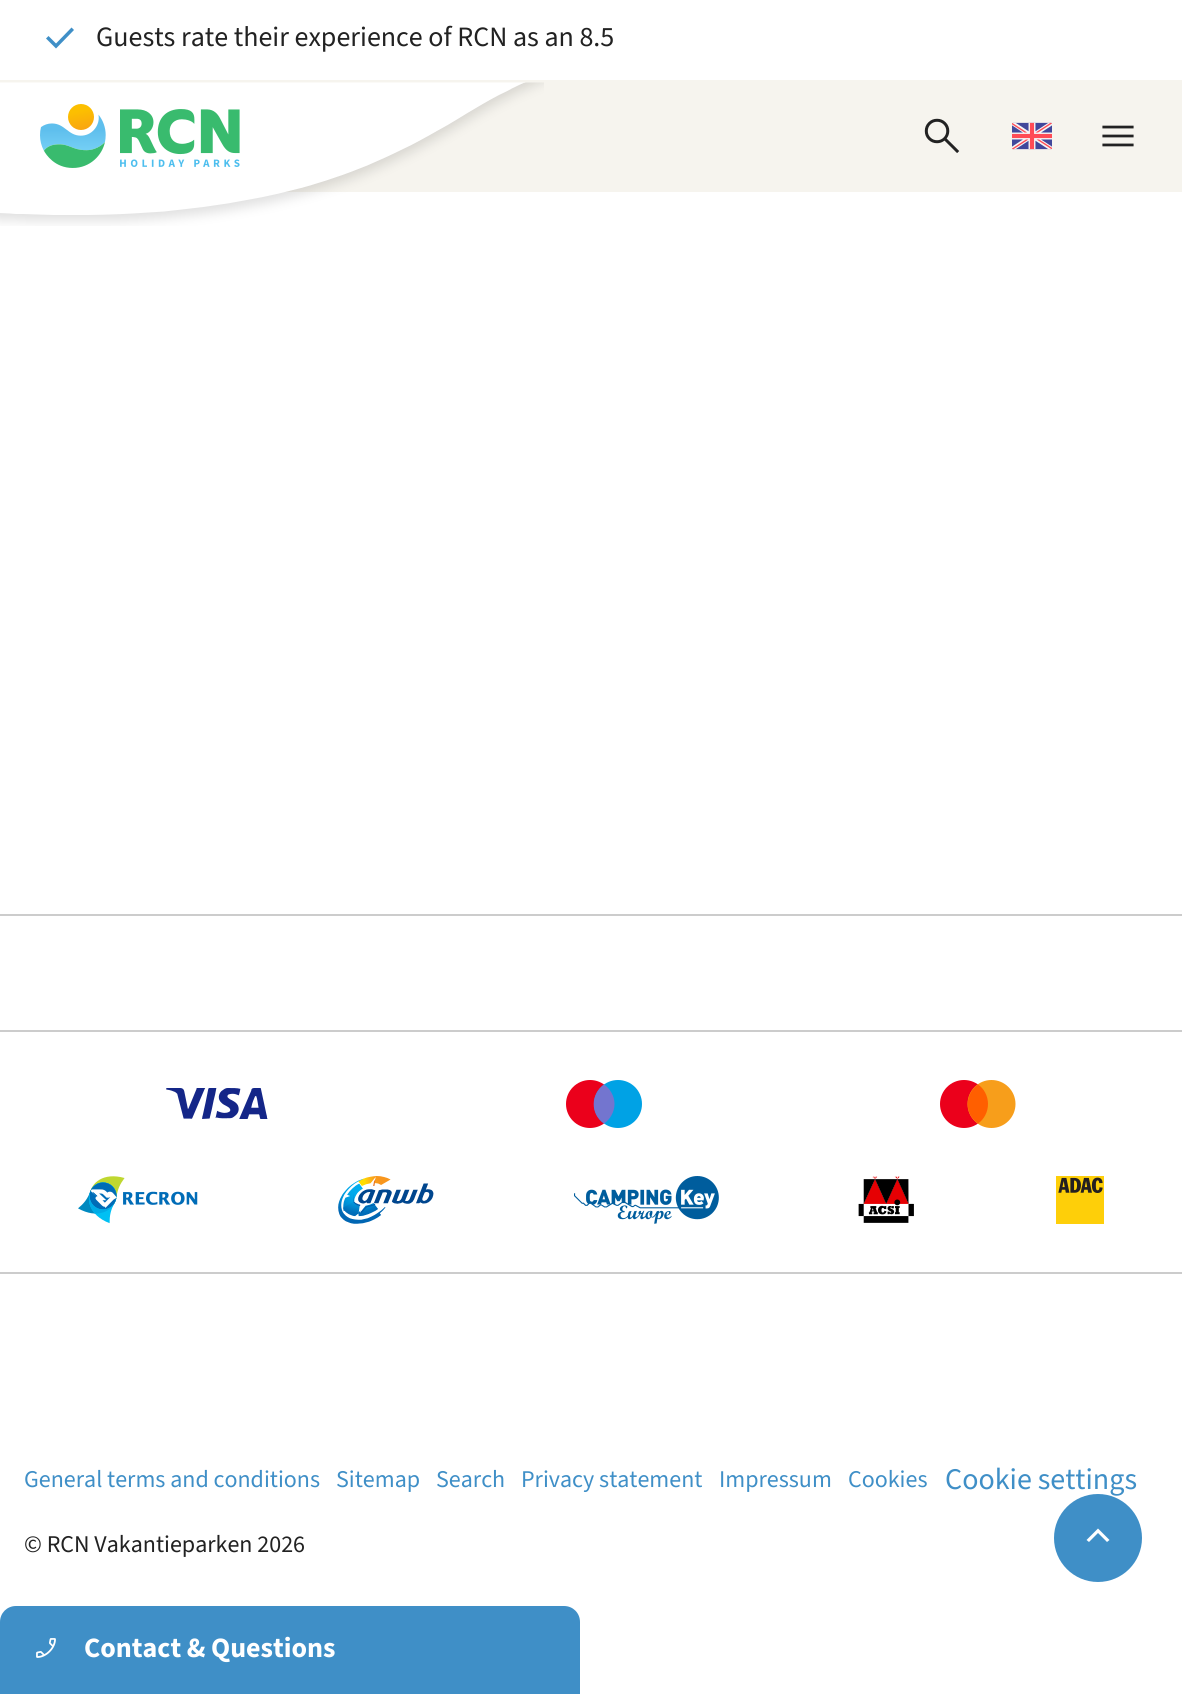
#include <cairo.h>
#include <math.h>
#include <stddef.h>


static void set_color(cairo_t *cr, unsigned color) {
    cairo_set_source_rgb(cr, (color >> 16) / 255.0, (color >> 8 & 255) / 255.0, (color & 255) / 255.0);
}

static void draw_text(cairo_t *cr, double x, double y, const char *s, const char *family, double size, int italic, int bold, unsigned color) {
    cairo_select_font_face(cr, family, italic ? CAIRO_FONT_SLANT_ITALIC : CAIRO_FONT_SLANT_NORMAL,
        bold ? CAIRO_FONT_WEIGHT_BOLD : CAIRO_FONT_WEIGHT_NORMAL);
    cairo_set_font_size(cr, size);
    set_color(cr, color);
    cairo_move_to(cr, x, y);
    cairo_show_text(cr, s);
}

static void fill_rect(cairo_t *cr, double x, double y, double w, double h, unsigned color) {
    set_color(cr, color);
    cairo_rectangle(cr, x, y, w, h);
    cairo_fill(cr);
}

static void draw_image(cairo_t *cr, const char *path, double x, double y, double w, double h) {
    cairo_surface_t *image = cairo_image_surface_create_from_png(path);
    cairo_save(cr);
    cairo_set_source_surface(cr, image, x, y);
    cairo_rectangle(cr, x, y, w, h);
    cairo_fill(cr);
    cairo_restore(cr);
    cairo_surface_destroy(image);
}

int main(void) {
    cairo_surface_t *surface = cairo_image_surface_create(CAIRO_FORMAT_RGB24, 1182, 1694);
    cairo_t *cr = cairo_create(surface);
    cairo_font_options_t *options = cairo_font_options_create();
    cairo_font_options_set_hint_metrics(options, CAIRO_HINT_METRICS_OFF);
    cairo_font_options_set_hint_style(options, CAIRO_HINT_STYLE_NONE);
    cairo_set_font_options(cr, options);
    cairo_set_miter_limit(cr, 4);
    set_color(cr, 0xFFFFFF);
    cairo_paint(cr);
    set_color(cr, 0x3F8FC7);
    cairo_new_path(cr);
    cairo_move_to(cr, 56, 48.5);
    cairo_line_to(cr, 46, 38.5);
    cairo_line_to(cr, 48.5, 36);
    cairo_line_to(cr, 56, 43.5);
    cairo_line_to(cr, 71.5, 27.5);
    cairo_line_to(cr, 74, 30);
    cairo_close_path(cr);
    cairo_fill(cr);
    draw_text(cr, 96, 46, "Guests rate their experience of RCN as an 8.5", "Source Sans 3", 28, 0, 0, 0x222222);
    fill_rect(cr, 0, 80, 1182, 112, 0xF6F4EE);
    draw_image(cr, "assets/img1.png", 0, 82, 544, 144);
    draw_image(cr, "assets/img2.png", 40, 104, 200, 64);
    draw_image(cr, "assets/img3.png", 924, 118, 36, 35);
    draw_image(cr, "assets/img4.png", 1012, 122, 40, 28);
    draw_image(cr, "assets/img5.png", 1102, 125, 32, 22);
    fill_rect(cr, 0, 914, 1182, 2, 0xCCCCCC);
    fill_rect(cr, 0, 1030, 1182, 2, 0xCCCCCC);
    fill_rect(cr, 0, 1272, 1182, 2, 0xCCCCCC);
    draw_image(cr, "assets/img6.png", 166, 1088, 102, 31);
    set_color(cr, 0xEB001B);
    cairo_arc(cr, 590, 1104, 24, 0, 2 * M_PI);
    cairo_fill(cr);
    set_color(cr, 0x00A2E5);
    cairo_arc(cr, 618, 1104, 24, 0, 2 * M_PI);
    cairo_fill(cr);
    set_color(cr, 0x7375CF);
    cairo_new_path(cr);
    cairo_move_to(cr, 614.5, 1104);
    cairo_curve_to(cr, 614.5, 1096, 610, 1088.5, 604, 1084.5);
    cairo_curve_to(cr, 590.5, 1094, 590, 1114, 604, 1123.5);
    cairo_curve_to(cr, 610, 1119.5, 614.5, 1112, 614.5, 1104);
    cairo_close_path(cr);
    cairo_fill(cr);
    set_color(cr, 0xEB001B);
    cairo_arc(cr, 964, 1104, 24, 0, 2 * M_PI);
    cairo_fill(cr);
    set_color(cr, 0xF79E1B);
    cairo_arc(cr, 991.5, 1104, 24, 0, 2 * M_PI);
    cairo_fill(cr);
    set_color(cr, 0xFF5F00);
    cairo_new_path(cr);
    cairo_move_to(cr, 988, 1104);
    cairo_curve_to(cr, 988, 1096, 984, 1088.5, 978, 1084.5);
    cairo_curve_to(cr, 964.5, 1094, 964, 1114, 978, 1123.5);
    cairo_curve_to(cr, 984, 1119.5, 988, 1112, 988, 1104);
    cairo_close_path(cr);
    cairo_fill(cr);
    draw_image(cr, "assets/img7.png", 78, 1176, 120, 48);
    draw_image(cr, "assets/img8.png", 338, 1176, 96, 48);
    draw_image(cr, "assets/img9.png", 574, 1176, 145, 48);
    draw_image(cr, "assets/img10.png", 858, 1176, 56, 47);
    draw_image(cr, "assets/img11.png", 1056, 1176, 48, 48);
    draw_text(cr, 24, 1487, "General terms and conditions", "Source Sans 3", 24, 0, 0, 0x3F8FC7);
    draw_text(cr, 336, 1487, "Sitemap", "Source Sans 3", 24, 0, 0, 0x3F8FC7);
    draw_text(cr, 436, 1487, "Search", "Source Sans 3", 24, 0, 0, 0x3F8FC7);
    draw_text(cr, 521, 1487, "Privacy statement", "Source Sans 3", 24, 0, 0, 0x3F8FC7);
    draw_text(cr, 719, 1487, "Impressum", "Source Sans 3", 24, 0, 0, 0x3F8FC7);
    draw_text(cr, 848, 1487, "Cookies", "Source Sans 3", 24, 0, 0, 0x3F8FC7);
    draw_text(cr, 945, 1489, "Cookie settings", "Source Sans 3", 30, 0, 0, 0x3F8FC7);
    draw_text(cr, 24, 1552, "© RCN Vakantieparken 2026", "Source Sans 3", 24, 0, 0, 0x222222);
    set_color(cr, 0x3F8FC7);
    cairo_new_path(cr);
    cairo_arc(cr, 1098, 1538, 44, 0, 2 * M_PI);
    cairo_fill(cr);
    set_color(cr, 0xFFFFFF);
    cairo_new_path(cr);
    cairo_move_to(cr, 1089, 1542);
    cairo_line_to(cr, 1086.5, 1540);
    cairo_line_to(cr, 1098, 1528.5);
    cairo_line_to(cr, 1109.5, 1540);
    cairo_line_to(cr, 1107, 1542);
    cairo_line_to(cr, 1098, 1533);
    cairo_close_path(cr);
    cairo_fill(cr);
    set_color(cr, 0x3F8FC7);
    cairo_new_path(cr);
    cairo_move_to(cr, 16, 1606);
    cairo_line_to(cr, 564, 1606);
    cairo_curve_to(cr, 573, 1606, 580, 1613, 580, 1622);
    cairo_line_to(cr, 580, 1694);
    cairo_line_to(cr, 0, 1694);
    cairo_line_to(cr, 0, 1622);
    cairo_curve_to(cr, 0, 1613, 7, 1606, 16, 1606);
    cairo_close_path(cr);
    cairo_fill(cr);
    draw_image(cr, "assets/img12.png", 36, 1638, 20, 20);
    draw_text(cr, 84, 1657, "Contact & Questions", "Source Sans 3", 28, 0, 1, 0xFFFFFF);
    cairo_surface_write_to_png(surface, "output.png");
    cairo_font_options_destroy(options);
    cairo_destroy(cr);
    cairo_surface_destroy(surface);
    return 0;
}
